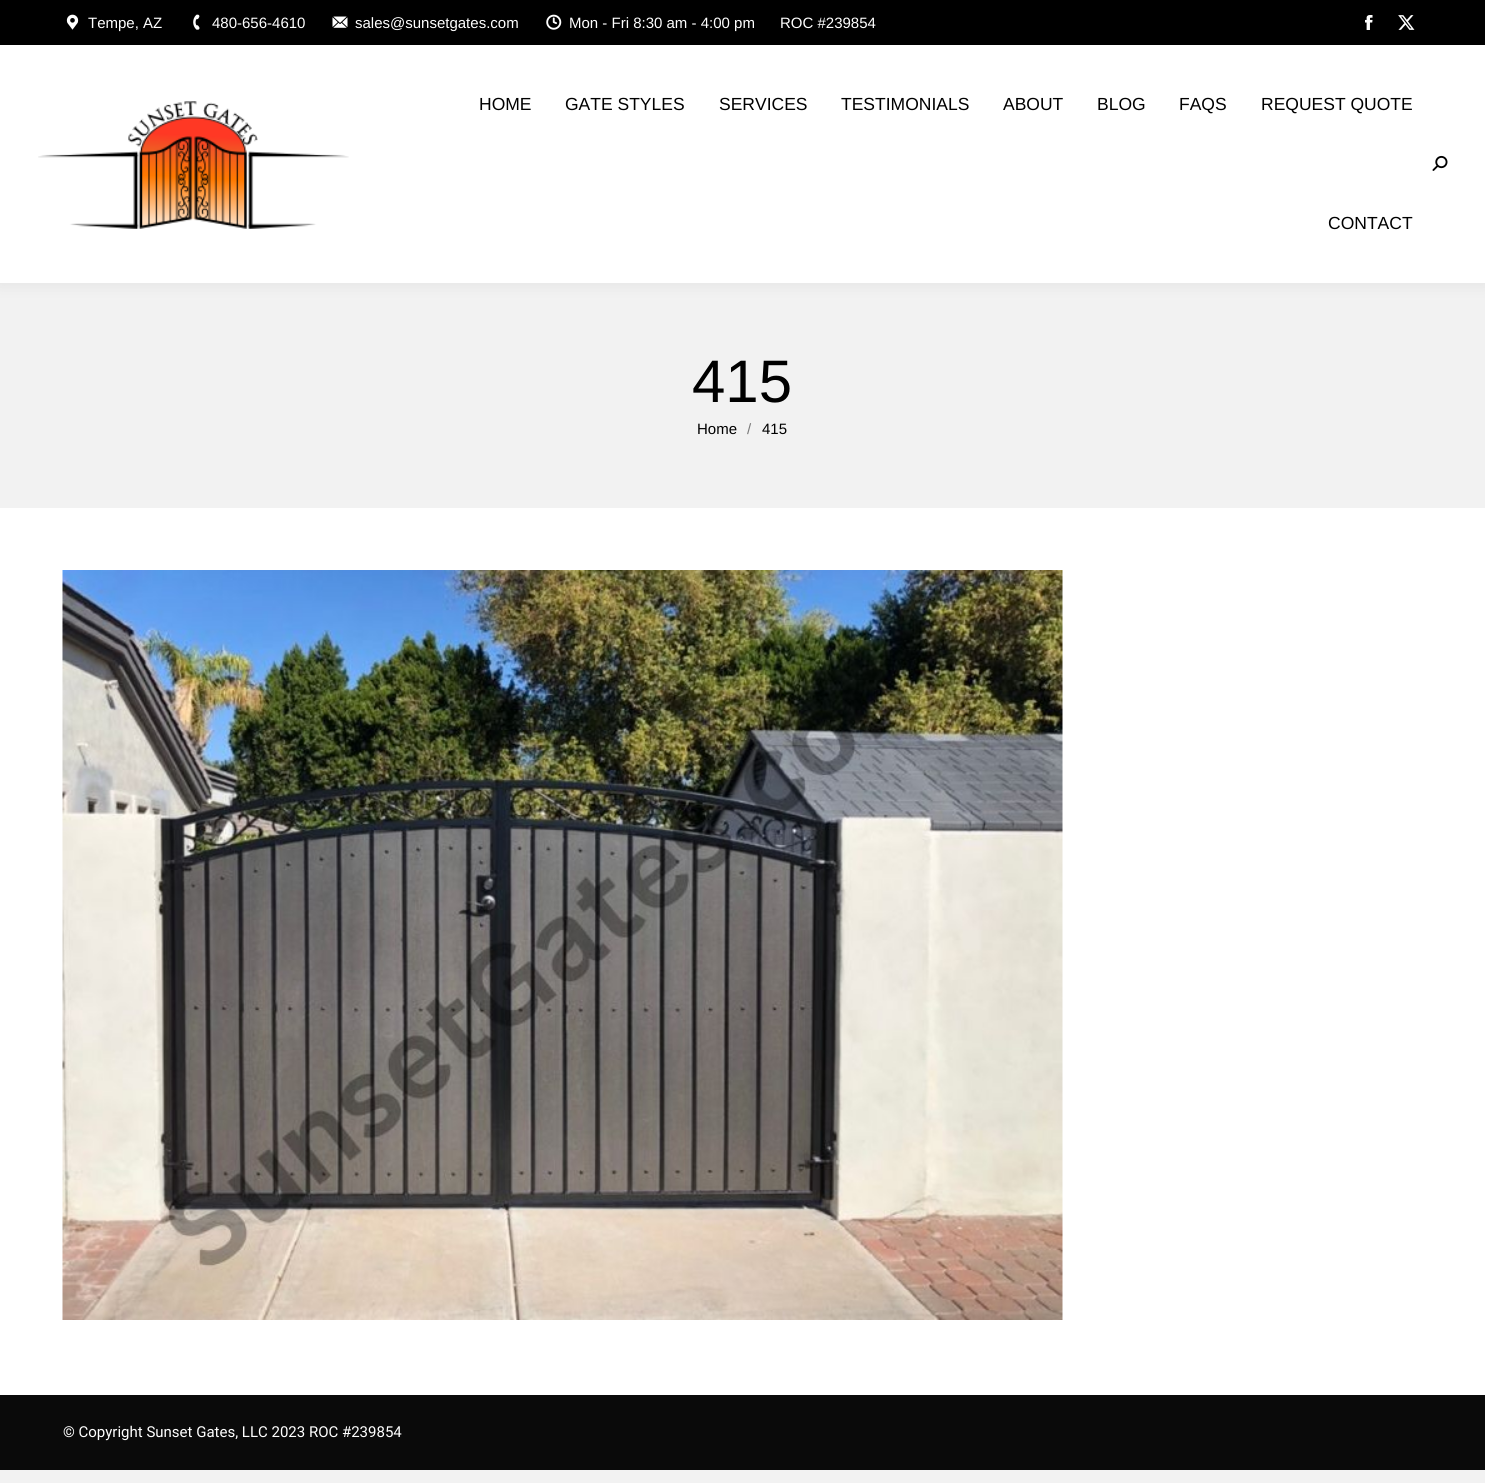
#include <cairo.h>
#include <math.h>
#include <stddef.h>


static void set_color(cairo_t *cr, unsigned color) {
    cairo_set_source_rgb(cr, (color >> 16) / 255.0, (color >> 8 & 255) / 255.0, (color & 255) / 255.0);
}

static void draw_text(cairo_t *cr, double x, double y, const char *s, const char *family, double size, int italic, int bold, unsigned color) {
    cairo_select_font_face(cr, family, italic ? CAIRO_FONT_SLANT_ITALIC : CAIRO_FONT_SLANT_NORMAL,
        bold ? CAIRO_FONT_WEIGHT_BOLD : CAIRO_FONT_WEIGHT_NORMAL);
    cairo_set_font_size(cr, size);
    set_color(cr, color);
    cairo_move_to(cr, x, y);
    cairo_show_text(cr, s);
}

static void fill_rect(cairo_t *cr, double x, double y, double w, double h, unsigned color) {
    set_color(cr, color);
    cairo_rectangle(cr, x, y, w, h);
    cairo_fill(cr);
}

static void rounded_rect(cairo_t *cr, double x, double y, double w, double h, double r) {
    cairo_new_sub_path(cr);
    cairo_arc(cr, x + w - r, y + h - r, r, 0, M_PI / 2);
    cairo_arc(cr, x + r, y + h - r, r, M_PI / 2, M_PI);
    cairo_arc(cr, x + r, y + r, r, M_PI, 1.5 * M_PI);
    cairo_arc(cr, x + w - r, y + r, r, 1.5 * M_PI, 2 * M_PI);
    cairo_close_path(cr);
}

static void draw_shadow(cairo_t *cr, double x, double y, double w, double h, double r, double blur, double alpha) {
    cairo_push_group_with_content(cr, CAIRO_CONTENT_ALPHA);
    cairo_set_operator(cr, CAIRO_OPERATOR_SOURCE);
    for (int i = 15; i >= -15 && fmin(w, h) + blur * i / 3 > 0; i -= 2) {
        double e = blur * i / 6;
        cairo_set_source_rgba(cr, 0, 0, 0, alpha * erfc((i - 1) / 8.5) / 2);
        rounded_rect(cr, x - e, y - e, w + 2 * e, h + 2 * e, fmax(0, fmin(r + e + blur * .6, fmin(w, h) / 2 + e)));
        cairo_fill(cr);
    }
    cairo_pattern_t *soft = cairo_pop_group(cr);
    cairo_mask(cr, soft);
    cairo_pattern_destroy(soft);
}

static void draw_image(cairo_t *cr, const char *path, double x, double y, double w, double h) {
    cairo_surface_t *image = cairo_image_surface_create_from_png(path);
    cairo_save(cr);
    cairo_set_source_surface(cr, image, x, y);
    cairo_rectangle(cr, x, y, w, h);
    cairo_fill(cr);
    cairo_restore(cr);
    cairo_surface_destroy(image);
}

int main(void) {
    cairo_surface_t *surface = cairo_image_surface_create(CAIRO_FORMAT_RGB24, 1485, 1483);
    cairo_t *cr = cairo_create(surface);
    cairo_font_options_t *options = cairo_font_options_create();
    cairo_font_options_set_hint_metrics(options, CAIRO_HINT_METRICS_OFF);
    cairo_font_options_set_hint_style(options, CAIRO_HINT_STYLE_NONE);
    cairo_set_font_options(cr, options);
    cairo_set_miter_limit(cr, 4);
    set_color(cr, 0xF2F2F2);
    cairo_paint(cr);
    fill_rect(cr, 0, 508, 1485, 887, 0xFFFFFF);
    set_color(cr, 0x000000);
    draw_shadow(cr, -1, -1, 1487, 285, 0, 9.5, 0.07);
    fill_rect(cr, 0, 45, 1485, 238, 0xFFFFFF);
    fill_rect(cr, 0, 0, 1485, 45, 0x000000);
    draw_image(cr, "assets/img1.png", 66, 14, 13, 16);
    draw_text(cr, 88, 28, "Tempe, AZ", "Liberation Sans", 15, 0, 0, 0xFFFFFF);
    draw_image(cr, "assets/img2.png", 193, 14, 7, 16);
    draw_text(cr, 212, 28, "480-656-4610", "Liberation Sans", 15, 0, 0, 0xFFFFFF);
    draw_image(cr, "assets/img3.png", 332, 16, 16, 12);
    draw_text(cr, 355, 28, "sales@sunsetgates.com", "Liberation Sans", 15, 0, 0, 0xFFFFFF);
    draw_image(cr, "assets/img4.png", 546, 14, 16, 16);
    draw_text(cr, 569, 28, "Mon - Fri 8:30 am - 4:00 pm", "Liberation Sans", 15, 0, 0, 0xFFFFFF);
    draw_text(cr, 780, 28, "ROC #239854", "Liberation Sans", 15, 0, 0, 0xFFFFFF);
    draw_image(cr, "assets/img5.png", 1365, 15, 8, 15);
    draw_image(cr, "assets/img6.png", 1398, 15, 17, 15);
    draw_image(cr, "assets/img7.png", 38, 101, 311, 128);
    draw_text(cr, 479, 110, "HOME", "Liberation Sans", 17.5, 0, 0, 0x000000);
    draw_text(cr, 565, 110, "GATE STYLES", "Liberation Sans", 17.5, 0, 0, 0x000000);
    draw_text(cr, 719, 110, "SERVICES", "Liberation Sans", 17.5, 0, 0, 0x000000);
    draw_text(cr, 841, 110, "TESTIMONIALS", "Liberation Sans", 17.5, 0, 0, 0x000000);
    draw_text(cr, 1003, 110, "ABOUT", "Liberation Sans", 17.5, 0, 0, 0x000000);
    draw_text(cr, 1097, 110, "BLOG", "Liberation Sans", 17.5, 0, 0, 0x000000);
    draw_text(cr, 1179, 110, "FAQS", "Liberation Sans", 17.5, 0, 0, 0x000000);
    draw_text(cr, 1261, 110, "REQUEST QUOTE", "Liberation Sans", 17.5, 0, 0, 0x000000);
    draw_text(cr, 1328, 229, "CONTACT", "Liberation Sans", 17.5, 0, 0, 0x000000);
    draw_image(cr, "assets/img8.png", 1432, 155, 16, 16);
    draw_text(cr, 692, 402, "415", "Liberation Sans", 60, 0, 0, 0x000000);
    draw_text(cr, 697, 434, "Home", "Liberation Sans", 15, 0, 0, 0x000000);
    draw_text(cr, 747, 434, "/", "Liberation Sans", 15, 0, 0, 0x7A7A7A);
    draw_text(cr, 762, 434, "415", "Liberation Sans", 15, 0, 0, 0x000000);
    draw_image(cr, "assets/img9.png", 62, 570, 1001, 750);
    fill_rect(cr, 0, 1395, 1485, 75, 0x0A0A0A);
    draw_text(cr, 63, 1437, "© Copyright Sunset Gates, LLC 2023 ROC #239854", "Roboto", 15, 0, 0, 0xFFFFFF);
    cairo_surface_write_to_png(surface, "output.png");
    cairo_font_options_destroy(options);
    cairo_destroy(cr);
    cairo_surface_destroy(surface);
    return 0;
}
